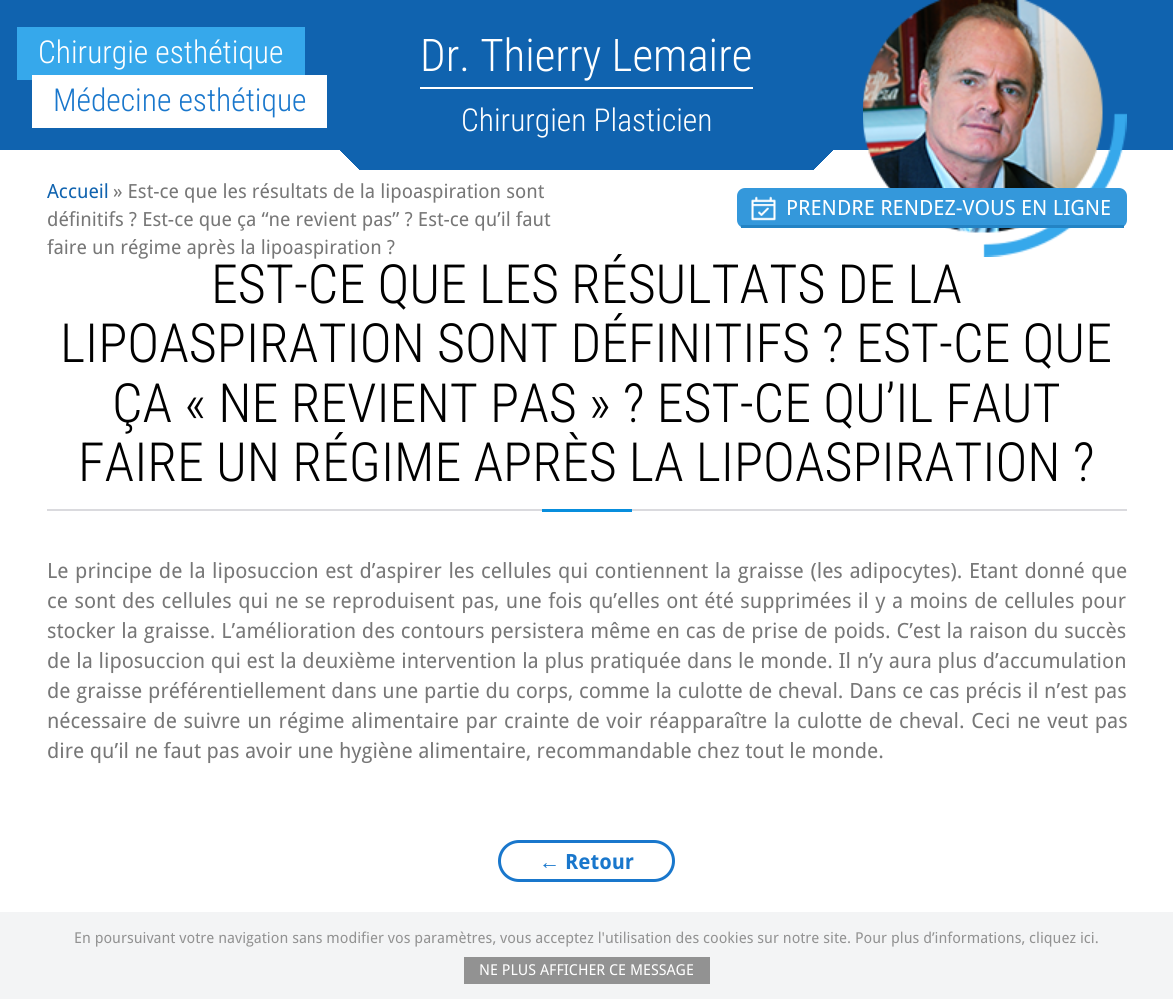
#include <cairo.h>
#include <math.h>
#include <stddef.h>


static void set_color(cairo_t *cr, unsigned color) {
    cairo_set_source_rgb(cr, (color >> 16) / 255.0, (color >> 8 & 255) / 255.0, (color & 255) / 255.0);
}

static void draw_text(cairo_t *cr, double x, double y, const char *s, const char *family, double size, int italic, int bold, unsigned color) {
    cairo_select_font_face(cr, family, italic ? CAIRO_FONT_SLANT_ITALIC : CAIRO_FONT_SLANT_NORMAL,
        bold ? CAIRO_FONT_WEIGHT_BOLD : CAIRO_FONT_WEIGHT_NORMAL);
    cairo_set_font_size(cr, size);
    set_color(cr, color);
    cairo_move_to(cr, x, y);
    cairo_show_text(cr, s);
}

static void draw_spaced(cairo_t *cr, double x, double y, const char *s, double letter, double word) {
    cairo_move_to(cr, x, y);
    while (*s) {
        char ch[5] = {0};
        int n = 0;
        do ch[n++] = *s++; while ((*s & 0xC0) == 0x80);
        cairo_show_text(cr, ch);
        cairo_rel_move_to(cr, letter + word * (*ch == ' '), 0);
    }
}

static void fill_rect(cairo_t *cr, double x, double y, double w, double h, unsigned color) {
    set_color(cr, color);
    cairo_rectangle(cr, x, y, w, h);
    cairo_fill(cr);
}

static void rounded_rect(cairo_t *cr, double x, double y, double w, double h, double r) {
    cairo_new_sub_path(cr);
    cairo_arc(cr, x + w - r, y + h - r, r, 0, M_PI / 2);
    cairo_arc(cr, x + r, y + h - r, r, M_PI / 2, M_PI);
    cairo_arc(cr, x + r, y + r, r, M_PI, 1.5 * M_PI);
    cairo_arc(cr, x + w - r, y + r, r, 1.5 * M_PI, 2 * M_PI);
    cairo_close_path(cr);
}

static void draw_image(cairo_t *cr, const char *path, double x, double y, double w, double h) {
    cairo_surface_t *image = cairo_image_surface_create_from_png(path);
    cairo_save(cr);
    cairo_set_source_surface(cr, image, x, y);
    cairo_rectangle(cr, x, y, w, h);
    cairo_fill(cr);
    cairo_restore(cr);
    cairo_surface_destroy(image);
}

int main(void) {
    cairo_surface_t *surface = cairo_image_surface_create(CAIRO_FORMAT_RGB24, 1173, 999);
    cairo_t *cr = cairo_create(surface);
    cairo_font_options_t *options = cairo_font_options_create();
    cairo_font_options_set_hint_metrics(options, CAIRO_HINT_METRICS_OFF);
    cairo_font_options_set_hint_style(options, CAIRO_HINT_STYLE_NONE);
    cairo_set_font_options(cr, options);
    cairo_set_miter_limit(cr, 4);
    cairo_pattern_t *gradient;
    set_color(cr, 0xFFFFFF);
    cairo_paint(cr);
    fill_rect(cr, 0, 0, 1173, 150, 0x1063AF);
    fill_rect(cr, 17, 27, 288, 53, 0x36A8EB);
    draw_text(cr, 38, 63, "Chirurgie esthétique", "Roboto Condensed Light", 31.5, 0, 0, 0xFFFFFF);
    fill_rect(cr, 32, 75, 295, 53, 0xFFFFFF);
    draw_text(cr, 53, 111, "Médecine esthétique", "Roboto Condensed Light", 31.5, 0, 0, 0x1977CC);
    gradient = cairo_pattern_create_linear(374, 212, 544, 42);
    cairo_pattern_add_color_stop_rgba(gradient, 0.08, 0.063, 0.388, 0.686, 0);
    cairo_pattern_add_color_stop_rgba(gradient, 0.08, 0.063, 0.388, 0.686, 1);
    cairo_set_source(cr, gradient);
    cairo_pattern_destroy(gradient);
    cairo_rectangle(cr, 340, 150, 247, 20);
    cairo_fill(cr);
    gradient = cairo_pattern_create_linear(799, 212, 629, 42);
    cairo_pattern_add_color_stop_rgba(gradient, 0.08, 0.063, 0.388, 0.686, 0);
    cairo_pattern_add_color_stop_rgba(gradient, 0.08, 0.063, 0.388, 0.686, 1);
    cairo_set_source(cr, gradient);
    cairo_pattern_destroy(gradient);
    cairo_rectangle(cr, 587, 150, 246, 20);
    cairo_fill(cr);
    fill_rect(cr, 420, 87, 333, 2, 0xFFFFFF);
    draw_text(cr, 420, 71, "Dr. Thierry Lemaire", "Roboto Condensed Light", 45, 0, 0, 0xFFFFFF);
    draw_text(cr, 461, 131, "Chirurgien Plasticien", "Roboto Condensed Light", 31.5, 0, 0, 0xFFFFFF);
    draw_text(cr, 211, 303, "EST-CE QUE LES RÉSULTATS DE LA", "Roboto Condensed Light", 54, 0, 0, 0x000000);
    draw_image(cr, "assets/img1.png", 863, 0, 264, 257);
    set_color(cr, 0x3498DB);
    rounded_rect(cr, 737, 188, 390, 40, 8);
    cairo_fill(cr);
    fill_rect(cr, 741, 225, 383, 3, 0x2383C4);
    draw_image(cr, "assets/img2.png", 751, 196, 25, 25);
    draw_text(cr, 786, 215, "PRENDRE RENDEZ-VOUS EN LIGNE", "Droid Sans", 21, 0, 0, 0xFFFFFF);
    draw_text(cr, 47, 198, "Accueil", "Droid Sans", 19.5, 0, 0, 0x1063AF);
    draw_text(cr, 113, 198, "» Est-ce que les résultats de la lipoaspiration sont", "Droid Sans", 19.5, 0, 0, 0x777777);
    draw_text(cr, 47, 226, "définitifs ? Est-ce que ça “ne revient pas” ? Est-ce qu’il faut", "Droid Sans", 19.5, 0, 0, 0x777777);
    draw_text(cr, 47, 254, "faire un régime après la lipoaspiration ?", "Droid Sans", 19.5, 0, 0, 0x777777);
    fill_rect(cr, 47, 509, 1080, 2, 0xDADADE);
    draw_text(cr, 60, 362, "LIPOASPIRATION SONT DÉFINITIFS ? EST-CE QUE", "Roboto Condensed Light", 54, 0, 0, 0x000000);
    draw_text(cr, 112, 422, "ÇA « NE REVIENT PAS » ? EST-CE QU’IL FAUT", "Roboto Condensed Light", 54, 0, 0, 0x000000);
    draw_text(cr, 78, 481, "FAIRE UN RÉGIME APRÈS LA LIPOASPIRATION ?", "Roboto Condensed Light", 54, 0, 0, 0x000000);
    fill_rect(cr, 542, 509, 90, 3, 0x088EDD);
    cairo_select_font_face(cr, "Droid Sans", CAIRO_FONT_SLANT_NORMAL, CAIRO_FONT_WEIGHT_NORMAL);
    cairo_set_font_size(cr, 21);
    set_color(cr, 0x777777);
    draw_spaced(cr, 47, 578, "Le principe de la liposuccion est d’aspirer les cellules qui contiennent la graisse (les adipocytes). Etant donné que", 0, 1.1);
    draw_spaced(cr, 47, 608, "ce sont des cellules qui ne se reproduisent pas, une fois qu’elles ont été supprimées il y a moins de cellules pour", 0, 1);
    draw_spaced(cr, 47, 638, "stocker la graisse. L’amélioration des contours persistera même en cas de prise de poids. C’est la raison du succès", 0, 0.4);
    draw_spaced(cr, 47, 668, "de la liposuccion qui est la deuxième intervention la plus pratiquée dans le monde. Il n’y aura plus d’accumulation", 0, 0.25);
    draw_spaced(cr, 47, 698, "de graisse préférentiellement dans une partie du corps, comme la culotte de cheval. Dans ce cas précis il n’est pas", 0, 0.3);
    draw_spaced(cr, 47, 728, "nécessaire de suivre un régime alimentaire par crainte de voir réapparaître la culotte de cheval. Ceci ne veut pas", 0, 1.2);
    draw_text(cr, 47, 758, "dire qu’il ne faut pas avoir une hygiène alimentaire, recommandable chez tout le monde.", "Droid Sans", 21, 0, 0, 0x777777);
    rounded_rect(cr, 499.5, 841.5, 174, 39, 19.5);
    set_color(cr, 0x1977CC);
    cairo_set_line_width(cr, 3);
    cairo_stroke(cr);
    draw_text(cr, 539, 869, "←", "Liberation Sans", 21, 0, 1, 0x1977CC);
    draw_text(cr, 565, 869, "Retour", "Droid Sans", 21, 0, 1, 0x1977CC);
    fill_rect(cr, 0, 912, 1173, 87, 0xF3F4F5);
    draw_text(cr, 74, 943, "En poursuivant votre navigation sans modifier vos paramètres, vous acceptez l'utilisation des cookies sur notre site. Pour plus d’informations, cliquez ici.", "Droid Sans", 15, 0, 0, 0x929292);
    fill_rect(cr, 464, 957, 246, 27, 0x929292);
    draw_text(cr, 479, 975, "NE PLUS AFFICHER CE MESSAGE", "Droid Sans", 15, 0, 0, 0xFFFFFF);
    cairo_surface_write_to_png(surface, "output.png");
    cairo_font_options_destroy(options);
    cairo_destroy(cr);
    cairo_surface_destroy(surface);
    return 0;
}
